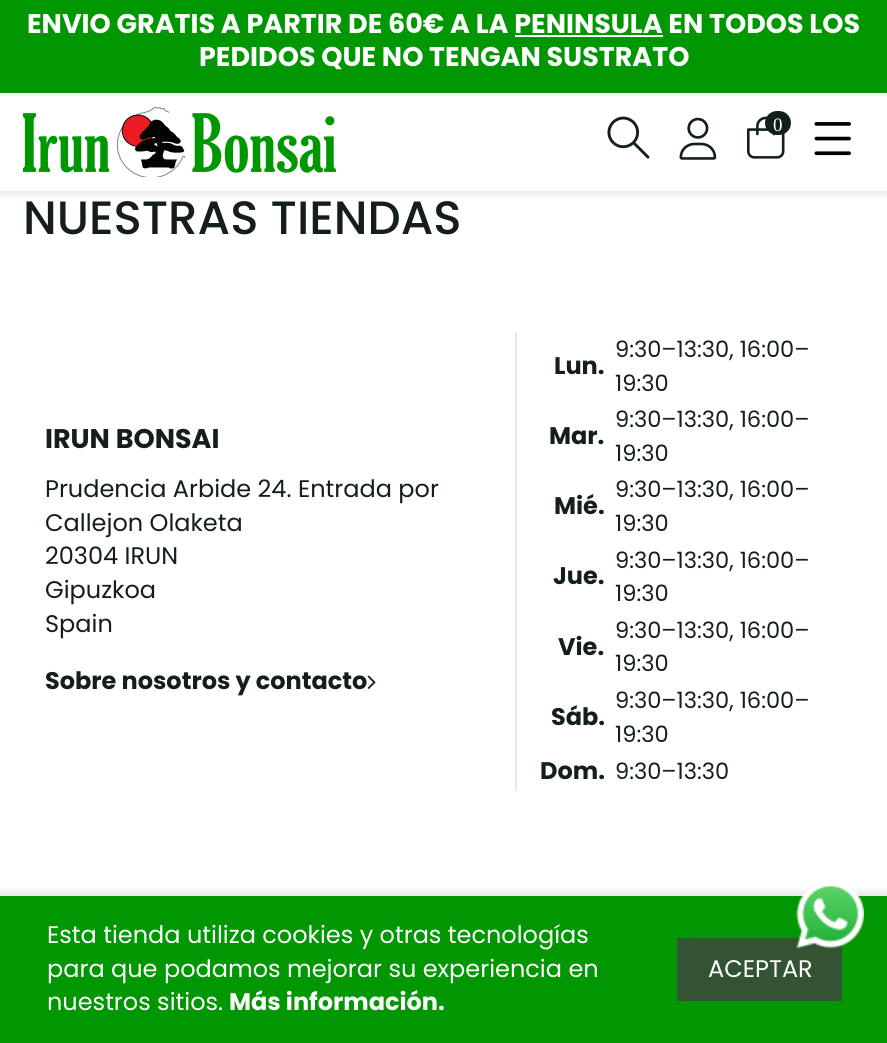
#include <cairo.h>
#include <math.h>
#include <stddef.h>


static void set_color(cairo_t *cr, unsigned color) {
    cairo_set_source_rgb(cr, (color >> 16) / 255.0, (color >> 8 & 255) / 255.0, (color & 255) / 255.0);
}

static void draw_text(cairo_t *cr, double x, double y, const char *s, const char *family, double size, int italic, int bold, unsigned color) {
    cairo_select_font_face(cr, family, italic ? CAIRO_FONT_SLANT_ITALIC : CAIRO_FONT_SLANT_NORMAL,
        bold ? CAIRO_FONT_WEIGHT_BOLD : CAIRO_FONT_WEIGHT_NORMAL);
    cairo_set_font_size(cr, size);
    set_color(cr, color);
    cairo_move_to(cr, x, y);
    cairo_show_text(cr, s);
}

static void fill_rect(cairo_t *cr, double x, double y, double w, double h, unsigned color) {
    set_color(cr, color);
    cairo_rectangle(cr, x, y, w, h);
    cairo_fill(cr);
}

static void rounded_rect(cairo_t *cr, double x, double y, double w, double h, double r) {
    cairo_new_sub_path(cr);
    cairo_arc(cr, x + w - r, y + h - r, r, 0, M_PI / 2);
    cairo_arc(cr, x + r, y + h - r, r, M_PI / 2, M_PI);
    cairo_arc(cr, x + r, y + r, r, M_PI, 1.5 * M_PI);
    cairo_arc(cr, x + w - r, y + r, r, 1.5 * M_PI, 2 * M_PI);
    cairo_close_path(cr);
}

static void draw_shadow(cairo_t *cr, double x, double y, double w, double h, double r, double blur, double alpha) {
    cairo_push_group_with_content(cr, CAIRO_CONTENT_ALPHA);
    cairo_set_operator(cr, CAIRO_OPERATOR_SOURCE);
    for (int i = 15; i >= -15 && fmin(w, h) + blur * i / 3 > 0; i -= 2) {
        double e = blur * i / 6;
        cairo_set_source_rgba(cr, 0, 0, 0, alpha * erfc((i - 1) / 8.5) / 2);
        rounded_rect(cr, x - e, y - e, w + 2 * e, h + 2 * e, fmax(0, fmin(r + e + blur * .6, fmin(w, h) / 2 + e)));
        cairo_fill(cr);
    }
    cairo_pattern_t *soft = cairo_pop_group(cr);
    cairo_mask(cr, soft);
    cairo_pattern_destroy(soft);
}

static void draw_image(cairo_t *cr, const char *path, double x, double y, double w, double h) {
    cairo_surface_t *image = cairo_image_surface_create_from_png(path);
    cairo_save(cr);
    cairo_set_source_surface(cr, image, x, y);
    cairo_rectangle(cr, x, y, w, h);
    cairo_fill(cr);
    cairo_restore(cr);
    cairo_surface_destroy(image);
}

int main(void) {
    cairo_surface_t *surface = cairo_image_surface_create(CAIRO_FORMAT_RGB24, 887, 1043);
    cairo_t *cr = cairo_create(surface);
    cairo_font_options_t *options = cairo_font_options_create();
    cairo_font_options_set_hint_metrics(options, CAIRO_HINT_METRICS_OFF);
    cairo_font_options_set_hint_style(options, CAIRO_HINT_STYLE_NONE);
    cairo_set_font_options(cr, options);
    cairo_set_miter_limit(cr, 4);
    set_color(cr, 0xFFFFFF);
    cairo_paint(cr);
    set_color(cr, 0x000000);
    draw_shadow(cr, 0, 98, 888, 97, 0, 3, 0.09);
    fill_rect(cr, 0, 0, 887, 93, 0x019702);
    draw_text(cr, 27, 33, "ENVIO GRATIS A PARTIR DE 60€ A LA PENINSULA EN TODOS LOS", "Poppins", 27, 0, 1, 0xFFFFFF);
    fill_rect(cr, 515, 35, 148, 2, 0xFFFFFF);
    draw_text(cr, 199, 66, "PEDIDOS QUE NO TENGAN SUSTRATO", "Poppins", 27, 0, 1, 0xFFFFFF);
    fill_rect(cr, 0, 94, 887, 97, 0xFFFFFF);
    draw_image(cr, "assets/img1.png", 23, 107, 313, 70);
    draw_image(cr, "assets/img2.png", 607, 116, 43, 43);
    draw_image(cr, "assets/img3.png", 679, 117, 38, 43);
    draw_image(cr, "assets/img4.png", 747, 116, 38, 43);
    set_color(cr, 0x141E1D);
    rounded_rect(cr, 765, 111, 26, 24, 12);
    cairo_fill(cr);
    draw_text(cr, 773, 131, "0", "Liberation Serif", 19, 0, 0, 0xFFFFFF);
    draw_image(cr, "assets/img5.png", 814, 122, 37, 34);
    draw_text(cr, 23, 234, "NUESTRAS TIENDAS", "Poppins Medium", 46.75, 0, 0, 0x141E1D);
    draw_text(cr, 45, 448, "IRUN BONSAI", "Poppins", 27, 0, 1, 0x141E1D);
    draw_text(cr, 45, 497, "Prudencia Arbide 24. Entrada por", "Poppins", 24, 0, 0, 0x141E1D);
    draw_text(cr, 45, 531, "Callejon Olaketa", "Poppins", 24, 0, 0, 0x141E1D);
    draw_text(cr, 45, 564, "20304 IRUN", "Poppins", 24, 0, 0, 0x141E1D);
    draw_text(cr, 45, 598, "Gipuzkoa", "Poppins", 24, 0, 0, 0x141E1D);
    draw_text(cr, 45, 632, "Spain", "Poppins", 24, 0, 0, 0x141E1D);
    draw_text(cr, 45, 689, "Sobre nosotros y contacto", "Poppins", 24, 0, 1, 0x141E1D);
    draw_image(cr, "assets/img6.png", 367, 675, 9, 14);
    fill_rect(cr, 515, 332, 2, 459, 0xE7E7E7);
    draw_text(cr, 554, 374, "Lun.", "Poppins", 24, 0, 1, 0x141E1D);
    draw_text(cr, 615, 357, "9:30–13:30, 16:00–", "Poppins", 22.5, 0, 0, 0x141E1D);
    draw_text(cr, 615, 391, "19:30", "Poppins", 22.5, 0, 0, 0x141E1D);
    draw_text(cr, 549, 444, "Mar.", "Poppins", 24, 0, 1, 0x141E1D);
    draw_text(cr, 615, 427, "9:30–13:30, 16:00–", "Poppins", 22.5, 0, 0, 0x141E1D);
    draw_text(cr, 615, 461, "19:30", "Poppins", 22.5, 0, 0, 0x141E1D);
    draw_text(cr, 554, 514, "Mié.", "Poppins", 24, 0, 1, 0x141E1D);
    draw_text(cr, 615, 497, "9:30–13:30, 16:00–", "Poppins", 22.5, 0, 0, 0x141E1D);
    draw_text(cr, 615, 531, "19:30", "Poppins", 22.5, 0, 0, 0x141E1D);
    draw_text(cr, 553, 584, "Jue.", "Poppins", 24, 0, 1, 0x141E1D);
    draw_text(cr, 615, 568, "9:30–13:30, 16:00–", "Poppins", 22.5, 0, 0, 0x141E1D);
    draw_text(cr, 615, 601, "19:30", "Poppins", 22.5, 0, 0, 0x141E1D);
    draw_text(cr, 558, 655, "Vie.", "Poppins", 24, 0, 1, 0x141E1D);
    draw_text(cr, 615, 638, "9:30–13:30, 16:00–", "Poppins", 22.5, 0, 0, 0x141E1D);
    draw_text(cr, 615, 671, "19:30", "Poppins", 22.5, 0, 0, 0x141E1D);
    draw_text(cr, 551, 725, "Sáb.", "Poppins", 24, 0, 1, 0x141E1D);
    draw_text(cr, 615, 708, "9:30–13:30, 16:00–", "Poppins", 22.5, 0, 0, 0x141E1D);
    draw_text(cr, 615, 742, "19:30", "Poppins", 22.5, 0, 0, 0x141E1D);
    draw_text(cr, 540, 779, "Dom.", "Poppins", 24, 0, 1, 0x141E1D);
    draw_text(cr, 615, 779, "9:30–13:30", "Poppins", 22.5, 0, 0, 0x141E1D);
    set_color(cr, 0x000000);
    draw_shadow(cr, 0, 891, 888, 149, 0, 3, 0.09);
    fill_rect(cr, 0, 896, 887, 147, 0x019702);
    fill_rect(cr, 677, 938, 165, 63, 0x325432);
    draw_image(cr, "assets/img7.png", 796, 885, 68, 63);
    draw_text(cr, 47, 943, "Esta tienda utiliza cookies y otras tecnologías", "Poppins", 24, 0, 0, 0xFFFFFF);
    draw_text(cr, 47, 977, "para que podamos mejorar su experiencia en", "Poppins", 24, 0, 0, 0xFFFFFF);
    draw_text(cr, 47, 1010, "nuestros sitios.", "Poppins", 24, 0, 0, 0xFFFFFF);
    draw_text(cr, 229, 1010, "Más información.", "Poppins", 24, 0, 1, 0xFFFFFF);
    draw_text(cr, 708, 977, "ACEPTAR", "Poppins", 24, 0, 0, 0xFFFFFF);
    cairo_surface_write_to_png(surface, "output.png");
    cairo_font_options_destroy(options);
    cairo_destroy(cr);
    cairo_surface_destroy(surface);
    return 0;
}
